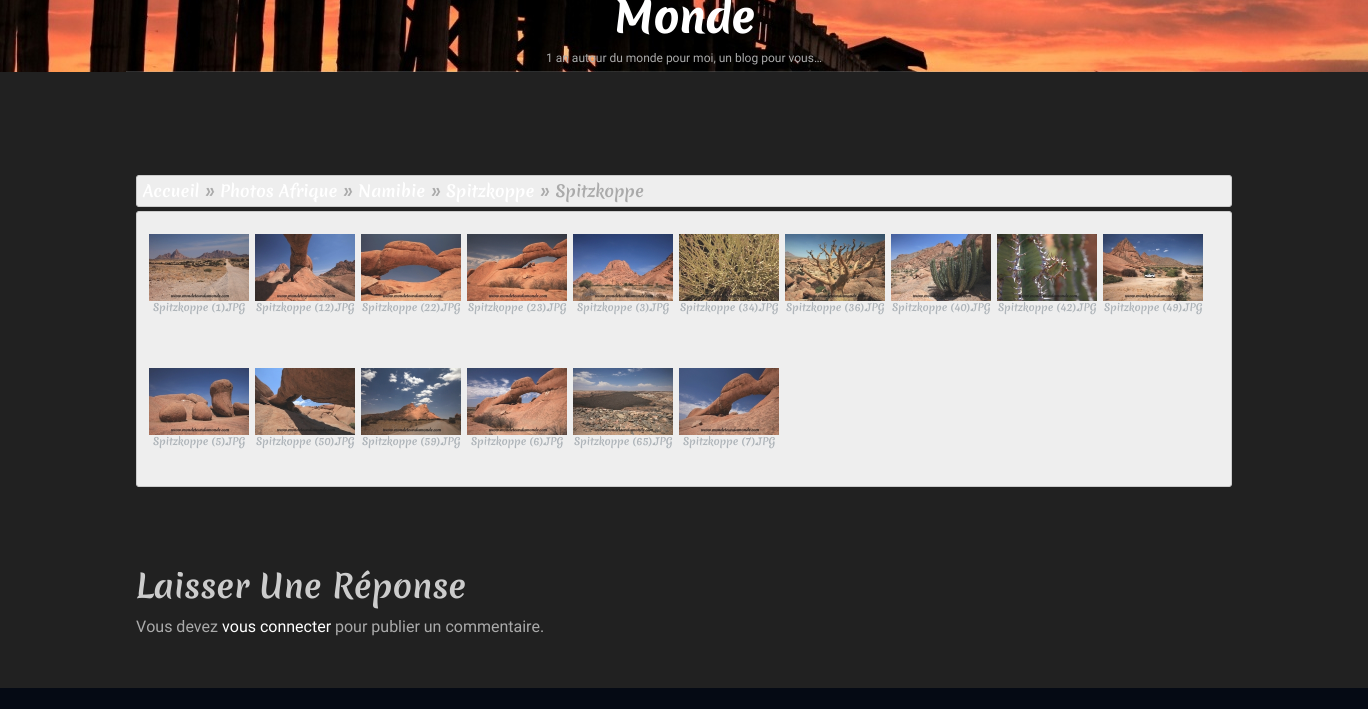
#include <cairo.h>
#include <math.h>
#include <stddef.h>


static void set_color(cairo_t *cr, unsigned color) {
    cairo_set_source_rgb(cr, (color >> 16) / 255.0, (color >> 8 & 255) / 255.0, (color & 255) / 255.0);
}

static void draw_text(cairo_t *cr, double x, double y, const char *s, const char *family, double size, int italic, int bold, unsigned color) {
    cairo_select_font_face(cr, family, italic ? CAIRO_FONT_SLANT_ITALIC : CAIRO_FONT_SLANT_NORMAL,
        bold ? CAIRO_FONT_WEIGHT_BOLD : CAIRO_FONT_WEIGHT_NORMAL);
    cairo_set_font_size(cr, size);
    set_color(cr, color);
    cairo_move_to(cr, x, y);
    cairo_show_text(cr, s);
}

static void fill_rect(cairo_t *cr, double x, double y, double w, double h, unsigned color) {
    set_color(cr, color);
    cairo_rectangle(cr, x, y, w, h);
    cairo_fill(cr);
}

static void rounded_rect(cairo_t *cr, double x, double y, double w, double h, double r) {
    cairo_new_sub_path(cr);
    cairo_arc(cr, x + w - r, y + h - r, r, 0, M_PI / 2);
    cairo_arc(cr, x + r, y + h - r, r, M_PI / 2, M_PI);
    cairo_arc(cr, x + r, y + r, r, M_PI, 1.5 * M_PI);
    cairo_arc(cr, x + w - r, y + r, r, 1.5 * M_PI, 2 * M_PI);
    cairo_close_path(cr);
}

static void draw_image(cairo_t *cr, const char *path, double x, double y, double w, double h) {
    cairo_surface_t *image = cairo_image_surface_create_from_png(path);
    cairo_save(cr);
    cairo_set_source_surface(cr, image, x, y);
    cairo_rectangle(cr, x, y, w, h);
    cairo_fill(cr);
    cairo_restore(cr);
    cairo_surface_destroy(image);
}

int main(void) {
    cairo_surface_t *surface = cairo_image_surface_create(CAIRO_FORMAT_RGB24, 1368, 709);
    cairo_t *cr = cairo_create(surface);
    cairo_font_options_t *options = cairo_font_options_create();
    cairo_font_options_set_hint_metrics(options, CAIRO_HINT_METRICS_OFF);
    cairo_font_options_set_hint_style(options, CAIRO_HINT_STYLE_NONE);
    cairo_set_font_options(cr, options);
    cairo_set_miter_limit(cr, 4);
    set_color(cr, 0x212121);
    cairo_paint(cr);
    draw_image(cr, "assets/img1.png", 0, 0, 1368, 72);
    draw_text(cr, 614, 33, "Monde", "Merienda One", 42, 0, 1, 0xFFFFFF);
    draw_text(cr, 546, 62, "1 an autour du monde pour moi, un blog pour vous…", "Roboto", 12, 0, 0, 0xAAAAAA);
    cairo_set_source_rgba(cr, 0.682, 0.706, 0.725, 0.25);
    cairo_rectangle(cr, 126, 71, 1116, 1);
    cairo_fill(cr);
    set_color(cr, 0xEEEEEE);
    rounded_rect(cr, 136.5, 175.5, 1095, 31, 2.5);
    cairo_fill_preserve(cr);
    set_color(cr, 0xCCCCCC);
    cairo_set_line_width(cr, 1);
    cairo_stroke(cr);
    draw_text(cr, 143, 197, "Accueil", "Merienda One", 16, 0, 0, 0xFFFFFF);
    draw_text(cr, 205, 197, "»", "Merienda One", 16, 0, 0, 0xAAAAAA);
    draw_text(cr, 220, 197, "Photos Afrique", "Merienda One", 16, 0, 0, 0xFFFFFF);
    draw_text(cr, 343, 197, "»", "Merienda One", 16, 0, 0, 0xAAAAAA);
    draw_text(cr, 358, 197, "Namibie", "Merienda One", 16, 0, 0, 0xFFFFFF);
    draw_text(cr, 431, 197, "»", "Merienda One", 16, 0, 0, 0xAAAAAA);
    draw_text(cr, 446, 197, "Spitzkoppe", "Merienda One", 16, 0, 0, 0xFFFFFF);
    draw_text(cr, 540, 197, "» Spitzkoppe", "Merienda One", 16, 0, 0, 0xAAAAAA);
    set_color(cr, 0xEEEEEE);
    rounded_rect(cr, 136.5, 211.5, 1095, 275, 2.5);
    cairo_fill_preserve(cr);
    set_color(cr, 0xCCCCCC);
    cairo_stroke(cr);
    draw_image(cr, "assets/img2.png", 149, 234, 100, 67);
    draw_text(cr, 153, 311, "Spitzkoppe (1).JPG", "Merienda One", 10, 0, 0, 0xAEB4B9);
    draw_image(cr, "assets/img3.png", 255, 234, 100, 67);
    draw_text(cr, 256, 311, "Spitzkoppe (12).JPG", "Merienda One", 10, 0, 0, 0xAEB4B9);
    draw_image(cr, "assets/img4.png", 361, 234, 100, 67);
    draw_text(cr, 362, 311, "Spitzkoppe (22).JPG", "Merienda One", 10, 0, 0, 0xAEB4B9);
    draw_image(cr, "assets/img5.png", 467, 234, 100, 67);
    draw_text(cr, 468, 311, "Spitzkoppe (23).JPG", "Merienda One", 10, 0, 0, 0xAEB4B9);
    draw_image(cr, "assets/img6.png", 573, 234, 100, 67);
    draw_text(cr, 577, 311, "Spitzkoppe (3).JPG", "Merienda One", 10, 0, 0, 0xAEB4B9);
    draw_image(cr, "assets/img7.png", 679, 234, 100, 67);
    draw_text(cr, 680, 311, "Spitzkoppe (34).JPG", "Merienda One", 10, 0, 0, 0xAEB4B9);
    draw_image(cr, "assets/img8.png", 785, 234, 100, 67);
    draw_text(cr, 786, 311, "Spitzkoppe (36).JPG", "Merienda One", 10, 0, 0, 0xAEB4B9);
    draw_image(cr, "assets/img9.png", 891, 234, 100, 67);
    draw_text(cr, 892, 311, "Spitzkoppe (40).JPG", "Merienda One", 10, 0, 0, 0xAEB4B9);
    draw_image(cr, "assets/img10.png", 997, 234, 100, 67);
    draw_text(cr, 998, 311, "Spitzkoppe (42).JPG", "Merienda One", 10, 0, 0, 0xAEB4B9);
    draw_image(cr, "assets/img11.png", 1103, 234, 100, 67);
    draw_text(cr, 1104, 311, "Spitzkoppe (49).JPG", "Merienda One", 10, 0, 0, 0xAEB4B9);
    draw_image(cr, "assets/img12.png", 149, 368, 100, 67);
    draw_text(cr, 153, 445, "Spitzkoppe (5).JPG", "Merienda One", 10, 0, 0, 0xAEB4B9);
    draw_image(cr, "assets/img13.png", 255, 368, 100, 67);
    draw_text(cr, 256, 445, "Spitzkoppe (50).JPG", "Merienda One", 10, 0, 0, 0xAEB4B9);
    draw_image(cr, "assets/img14.png", 361, 368, 100, 67);
    draw_text(cr, 362, 445, "Spitzkoppe (59).JPG", "Merienda One", 10, 0, 0, 0xAEB4B9);
    draw_image(cr, "assets/img15.png", 467, 368, 100, 67);
    draw_text(cr, 471, 445, "Spitzkoppe (6).JPG", "Merienda One", 10, 0, 0, 0xAEB4B9);
    draw_image(cr, "assets/img16.png", 573, 368, 100, 67);
    draw_text(cr, 574, 445, "Spitzkoppe (65).JPG", "Merienda One", 10, 0, 0, 0xAEB4B9);
    draw_image(cr, "assets/img17.png", 679, 368, 100, 67);
    draw_text(cr, 683, 445, "Spitzkoppe (7).JPG", "Merienda One", 10, 0, 0, 0xAEB4B9);
    draw_text(cr, 136, 598, "Laisser Une Réponse", "Merienda One", 32, 0, 0, 0xCCCCCC);
    draw_text(cr, 136, 632, "Vous devez", "Roboto", 16, 0, 0, 0xAAAAAA);
    draw_text(cr, 222, 632, "vous connecter", "Roboto", 16, 0, 0, 0xFFFFFF);
    draw_text(cr, 335, 632, "pour publier un commentaire.", "Roboto", 16, 0, 0, 0xAAAAAA);
    fill_rect(cr, 0, 688, 1368, 21, 0x050A14);
    cairo_surface_write_to_png(surface, "output.png");
    cairo_font_options_destroy(options);
    cairo_destroy(cr);
    cairo_surface_destroy(surface);
    return 0;
}
